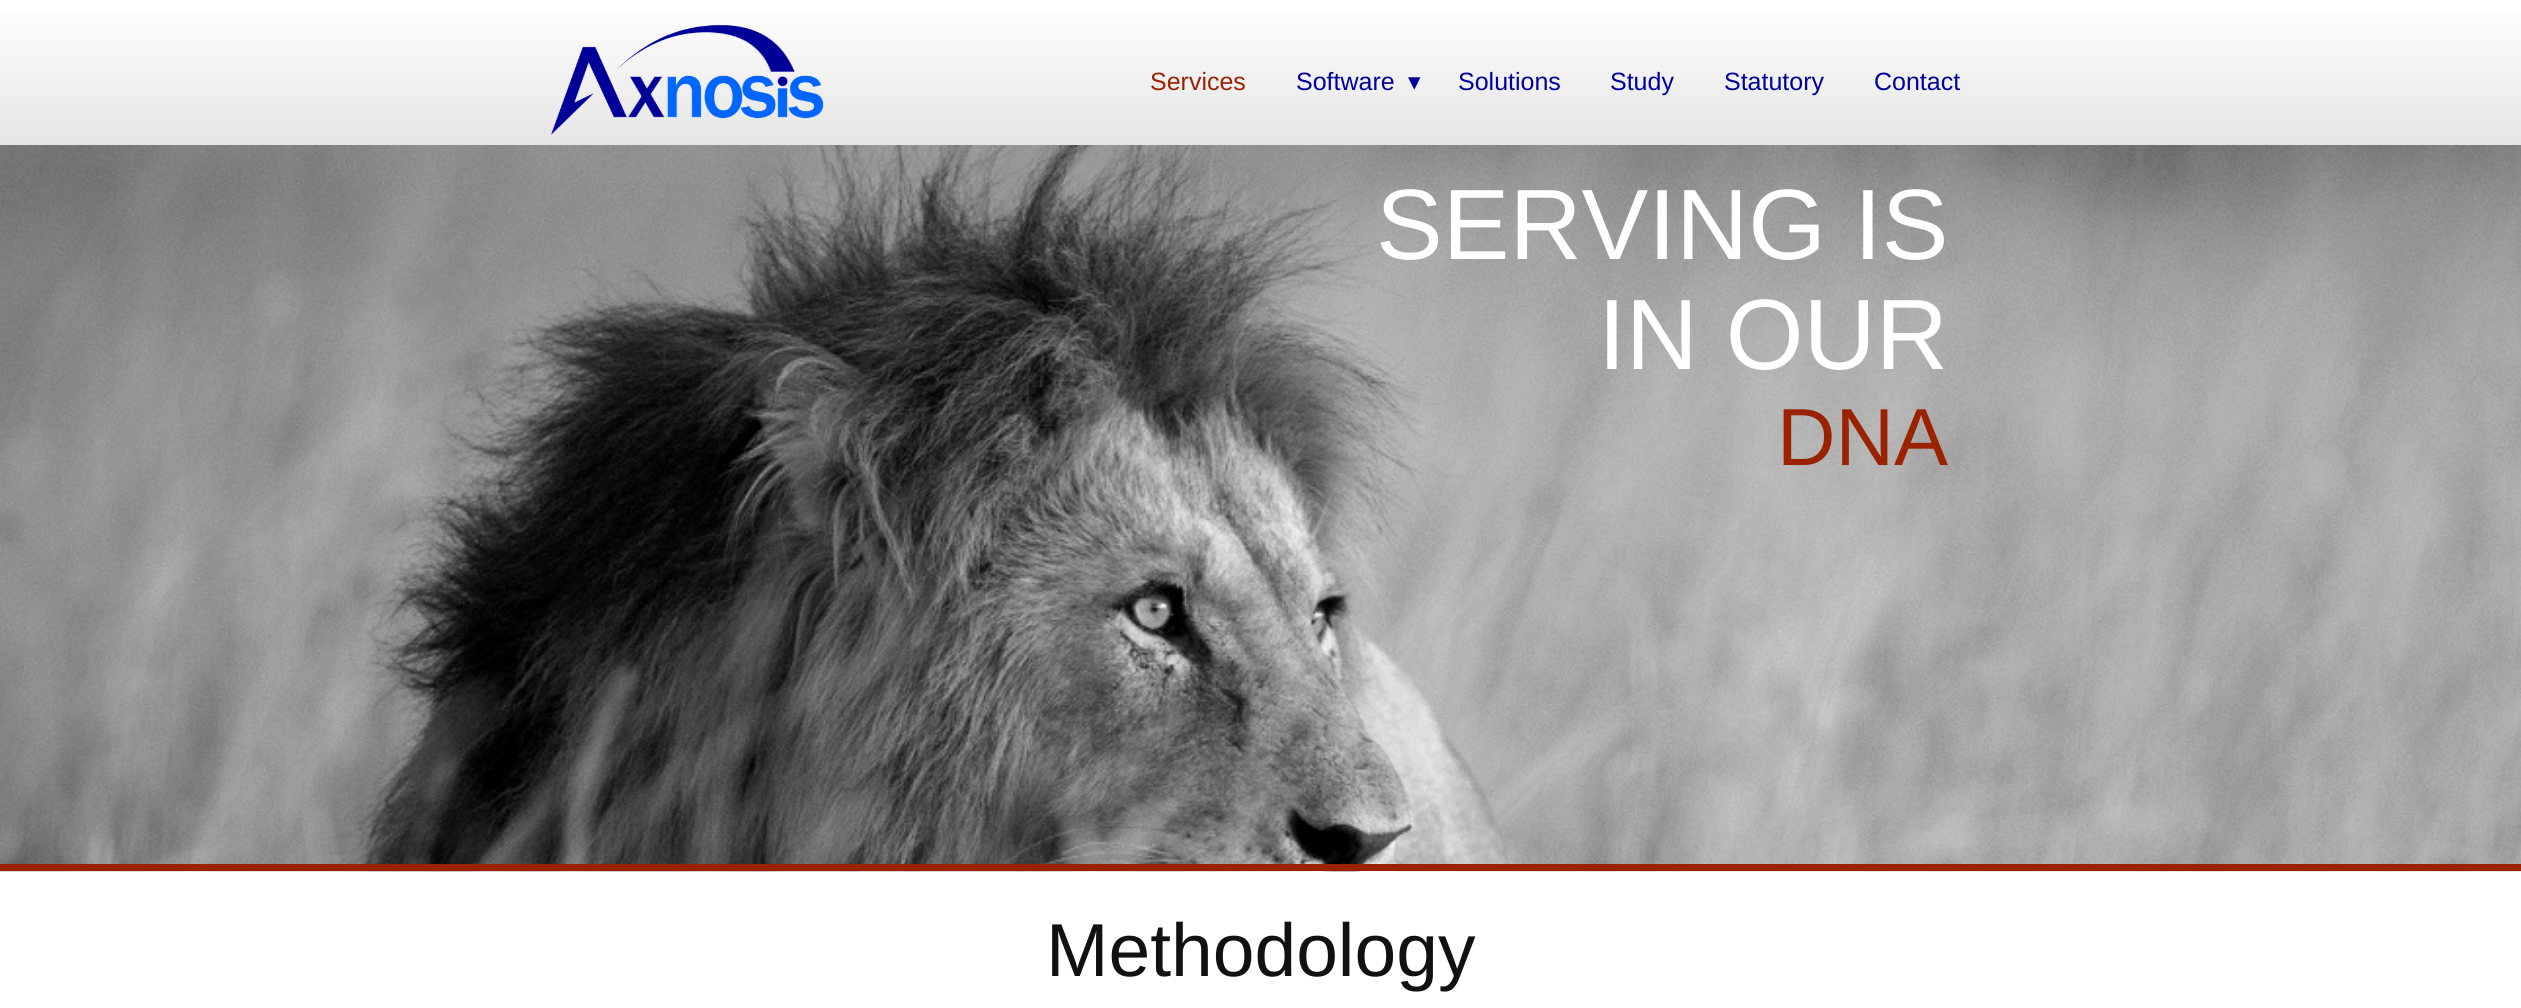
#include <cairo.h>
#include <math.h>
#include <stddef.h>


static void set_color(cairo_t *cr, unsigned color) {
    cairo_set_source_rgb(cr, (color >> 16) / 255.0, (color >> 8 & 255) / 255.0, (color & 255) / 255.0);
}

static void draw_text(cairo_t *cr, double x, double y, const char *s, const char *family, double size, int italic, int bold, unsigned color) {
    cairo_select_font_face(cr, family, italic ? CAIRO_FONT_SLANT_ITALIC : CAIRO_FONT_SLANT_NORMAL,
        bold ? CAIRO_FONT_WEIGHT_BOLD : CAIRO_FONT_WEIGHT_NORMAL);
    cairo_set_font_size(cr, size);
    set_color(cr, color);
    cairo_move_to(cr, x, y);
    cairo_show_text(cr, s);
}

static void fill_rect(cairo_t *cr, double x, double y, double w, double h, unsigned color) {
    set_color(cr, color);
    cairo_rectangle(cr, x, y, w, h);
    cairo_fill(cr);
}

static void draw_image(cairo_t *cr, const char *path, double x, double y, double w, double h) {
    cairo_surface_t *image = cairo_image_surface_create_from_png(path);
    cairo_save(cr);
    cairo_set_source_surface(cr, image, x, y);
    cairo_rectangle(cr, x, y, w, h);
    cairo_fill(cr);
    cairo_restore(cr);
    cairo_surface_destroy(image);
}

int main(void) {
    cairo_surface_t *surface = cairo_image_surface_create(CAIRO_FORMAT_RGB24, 2521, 1008);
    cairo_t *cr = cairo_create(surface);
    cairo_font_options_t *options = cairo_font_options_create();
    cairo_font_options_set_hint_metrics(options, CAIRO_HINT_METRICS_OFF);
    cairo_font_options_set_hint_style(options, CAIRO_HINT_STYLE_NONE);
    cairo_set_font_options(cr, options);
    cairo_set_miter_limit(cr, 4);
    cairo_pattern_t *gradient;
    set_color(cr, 0xFFFFFF);
    cairo_paint(cr);
    gradient = cairo_pattern_create_linear(1261, 0, 1261, 145);
    cairo_pattern_add_color_stop_rgba(gradient, 0, 1, 1, 1, 1);
    cairo_pattern_add_color_stop_rgba(gradient, 1, 0.898, 0.898, 0.898, 1);
    cairo_set_source(cr, gradient);
    cairo_pattern_destroy(gradient);
    cairo_rectangle(cr, 0, 14, 2521, 131);
    cairo_fill(cr);
    draw_image(cr, "assets/img1.png", 551, 25, 273, 110);
    draw_text(cr, 1150, 90, "Services", "Liberation Sans", 25, 0, 0, 0x9B2200);
    draw_text(cr, 1296, 90, "Software", "Liberation Sans", 25, 0, 0, 0x01009A);
    draw_text(cr, 1408, 90, "▾", "DejaVu Sans", 25, 0, 0, 0x01009A);
    draw_text(cr, 1458, 90, "Solutions", "Liberation Sans", 25, 0, 0, 0x01009A);
    draw_text(cr, 1610, 90, "Study", "Liberation Sans", 25, 0, 0, 0x01009A);
    draw_text(cr, 1724, 90, "Statutory", "Liberation Sans", 25, 0, 0, 0x01009A);
    draw_text(cr, 1874, 90, "Contact", "Liberation Sans", 25, 0, 0, 0x01009A);
    draw_image(cr, "assets/img2.png", 0, 145, 2521, 727);
    fill_rect(cr, 0, 864, 2521, 7, 0x9B2200);
    draw_text(cr, 1376, 259, "SERVING IS", "Liberation Sans", 100, 0, 0, 0xFFFFFF);
    draw_text(cr, 1598, 369, "IN OUR", "Liberation Sans", 100, 0, 0, 0xFFFFFF);
    draw_text(cr, 1777, 465, "DNA", "Liberation Sans", 81, 0, 0, 0x9B2200);
    draw_text(cr, 1046, 976, "Methodology", "Liberation Sans", 75, 0, 0, 0x111111);
    cairo_surface_write_to_png(surface, "output.png");
    cairo_font_options_destroy(options);
    cairo_destroy(cr);
    cairo_surface_destroy(surface);
    return 0;
}
